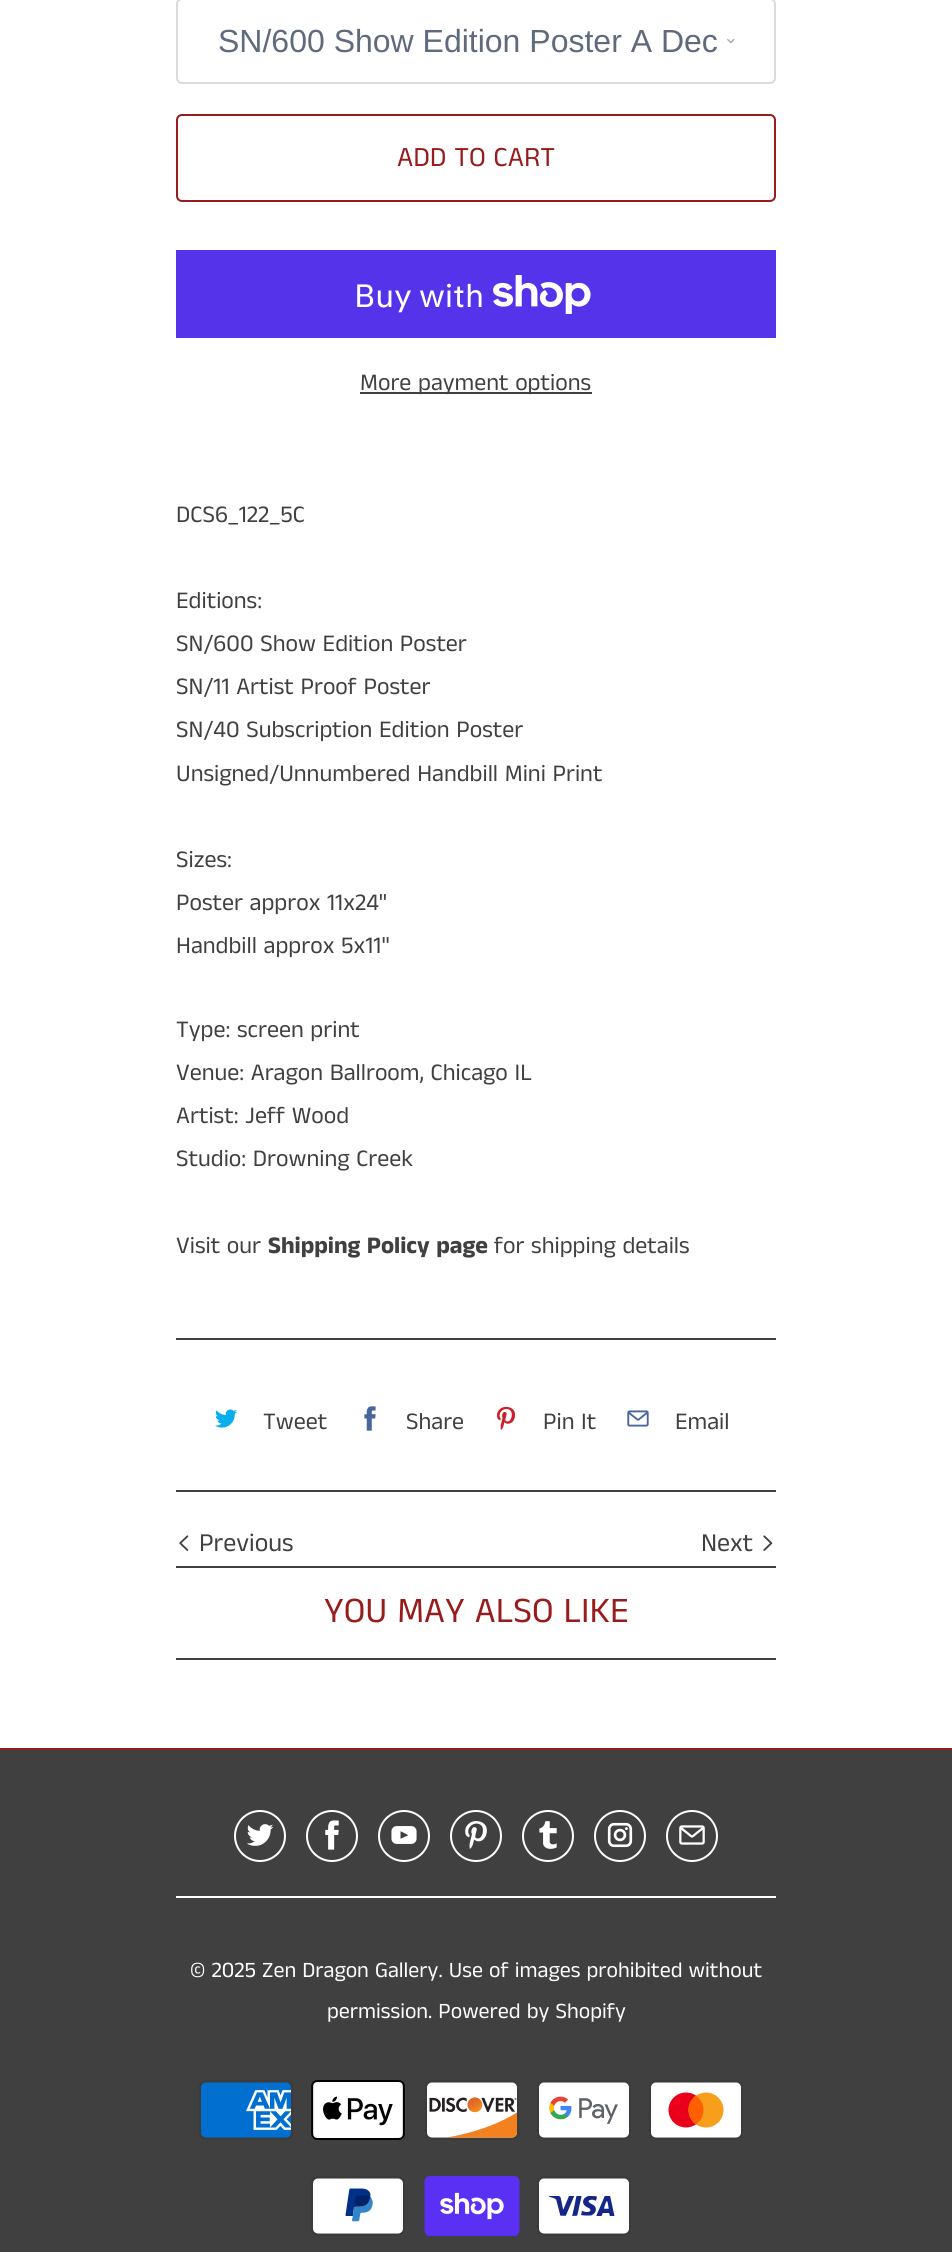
#include <cairo.h>
#include <math.h>
#include <stddef.h>


static void set_color(cairo_t *cr, unsigned color) {
    cairo_set_source_rgb(cr, (color >> 16) / 255.0, (color >> 8 & 255) / 255.0, (color & 255) / 255.0);
}

static void draw_text(cairo_t *cr, double x, double y, const char *s, const char *family, double size, int italic, int bold, unsigned color) {
    cairo_select_font_face(cr, family, italic ? CAIRO_FONT_SLANT_ITALIC : CAIRO_FONT_SLANT_NORMAL,
        bold ? CAIRO_FONT_WEIGHT_BOLD : CAIRO_FONT_WEIGHT_NORMAL);
    cairo_set_font_size(cr, size);
    set_color(cr, color);
    cairo_move_to(cr, x, y);
    cairo_show_text(cr, s);
}

static void fill_rect(cairo_t *cr, double x, double y, double w, double h, unsigned color) {
    set_color(cr, color);
    cairo_rectangle(cr, x, y, w, h);
    cairo_fill(cr);
}

static void rounded_rect(cairo_t *cr, double x, double y, double w, double h, double r) {
    cairo_new_sub_path(cr);
    cairo_arc(cr, x + w - r, y + h - r, r, 0, M_PI / 2);
    cairo_arc(cr, x + r, y + h - r, r, M_PI / 2, M_PI);
    cairo_arc(cr, x + r, y + r, r, M_PI, 1.5 * M_PI);
    cairo_arc(cr, x + w - r, y + r, r, 1.5 * M_PI, 2 * M_PI);
    cairo_close_path(cr);
}

static void draw_image(cairo_t *cr, const char *path, double x, double y, double w, double h) {
    cairo_surface_t *image = cairo_image_surface_create_from_png(path);
    cairo_save(cr);
    cairo_set_source_surface(cr, image, x, y);
    cairo_rectangle(cr, x, y, w, h);
    cairo_fill(cr);
    cairo_restore(cr);
    cairo_surface_destroy(image);
}

int main(void) {
    cairo_surface_t *surface = cairo_image_surface_create(CAIRO_FORMAT_RGB24, 952, 2252);
    cairo_t *cr = cairo_create(surface);
    cairo_font_options_t *options = cairo_font_options_create();
    cairo_font_options_set_hint_metrics(options, CAIRO_HINT_METRICS_OFF);
    cairo_font_options_set_hint_style(options, CAIRO_HINT_STYLE_NONE);
    cairo_set_font_options(cr, options);
    cairo_set_miter_limit(cr, 4);
    set_color(cr, 0xFFFFFF);
    cairo_paint(cr);
    draw_image(cr, "assets/img1.png", 726, 38, 9, 6);
    rounded_rect(cr, 177, -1, 598, 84, 5);
    set_color(cr, 0xD9DBDC);
    cairo_stroke(cr);
    draw_text(cr, 218, 52, "SN/600 Show Edition Poster A Dec", "Liberation Sans", 32, 0, 0, 0x5F6A7D);
    rounded_rect(cr, 177, 115, 598, 86, 5);
    set_color(cr, 0x991C1C);
    cairo_stroke(cr);
    draw_text(cr, 397, 166, "ADD TO CART", "Anek Tamil", 28, 0, 0, 0x991C1C);
    fill_rect(cr, 176, 250, 600, 88, 0x5433EB);
    draw_text(cr, 354, 307, "Buy with", "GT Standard", 32, 0, 0, 0xFFFFFF);
    draw_image(cr, "assets/img2.png", 493, 275, 98, 39);
    fill_rect(cr, 360, 392, 232, 2, 0x404040);
    draw_text(cr, 360, 390, "More payment options", "Anek Tamil", 24, 0, 0, 0x404040);
    draw_text(cr, 176, 522, "DCS6_122_5C", "Anek Tamil", 24, 0, 0, 0x404040);
    draw_text(cr, 176, 608, "Editions:", "Anek Tamil", 24, 0, 0, 0x404040);
    draw_text(cr, 176, 651, "SN/600 Show Edition Poster", "Anek Tamil", 24, 0, 0, 0x404040);
    draw_text(cr, 176, 694, "SN/11 Artist Proof Poster", "Anek Tamil", 24, 0, 0, 0x404040);
    draw_text(cr, 176, 737, "SN/40 Subscription Edition Poster", "Anek Tamil", 24, 0, 0, 0x404040);
    draw_text(cr, 176, 781, "Unsigned/Unnumbered Handbill Mini Print", "Anek Tamil", 24, 0, 0, 0x404040);
    draw_text(cr, 176, 867, "Sizes:", "Anek Tamil", 24, 0, 0, 0x404040);
    draw_text(cr, 176, 910, "Poster approx 11x24\"", "Anek Tamil", 24, 0, 0, 0x404040);
    draw_text(cr, 176, 953, "Handbill approx 5x11\"", "Anek Tamil", 24, 0, 0, 0x404040);
    draw_text(cr, 176, 1037, "Type: screen print", "Anek Tamil", 24, 0, 0, 0x404040);
    draw_text(cr, 176, 1080, "Venue: Aragon Ballroom, Chicago IL", "Anek Tamil", 24, 0, 0, 0x404040);
    draw_text(cr, 176, 1123, "Artist: Jeff Wood", "Anek Tamil", 24, 0, 0, 0x404040);
    draw_text(cr, 176, 1166, "Studio: Drowning Creek", "Anek Tamil", 24, 0, 0, 0x404040);
    draw_text(cr, 176, 1253, "Visit our", "Anek Tamil", 24, 0, 0, 0x404040);
    draw_text(cr, 268, 1253, "Shipping Policy page", "Anek Tamil", 24, 0, 1, 0x404040);
    draw_text(cr, 494, 1253, "for shipping details", "Anek Tamil", 24, 0, 0, 0x404040);
    fill_rect(cr, 176, 1338, 600, 2, 0x404040);
    draw_image(cr, "assets/img3.png", 215, 1409, 22, 19);
    draw_text(cr, 263, 1429, "Tweet", "Anek Tamil", 24, 0, 0, 0x404040);
    draw_image(cr, "assets/img4.png", 364, 1406, 12, 25);
    draw_text(cr, 406, 1429, "Share", "Anek Tamil", 24, 0, 0, 0x404040);
    draw_image(cr, "assets/img5.png", 497, 1406, 19, 24);
    draw_text(cr, 543, 1429, "Pin It", "Anek Tamil", 24, 0, 0, 0x404040);
    draw_image(cr, "assets/img6.png", 627, 1410, 22, 17);
    draw_text(cr, 675, 1429, "Email", "Anek Tamil", 24, 0, 0, 0x404040);
    fill_rect(cr, 176, 1490, 600, 2, 0x404040);
    draw_image(cr, "assets/img7.png", 179, 1535, 10, 16);
    draw_text(cr, 199, 1551, "Previous", "Anek Tamil", 26, 0, 0, 0x404040);
    draw_text(cr, 701, 1551, "Next", "Anek Tamil", 26, 0, 0, 0x404040);
    draw_image(cr, "assets/img8.png", 763, 1535, 10, 16);
    fill_rect(cr, 176, 1566, 600, 2, 0x404040);
    fill_rect(cr, 176, 1658, 600, 2, 0x404040);
    draw_text(cr, 324, 1622, "YOU MAY ALSO LIKE", "Anek Tamil", 36, 0, 0, 0x991C1C);
    fill_rect(cr, 0, 1750, 952, 502, 0x404040);
    fill_rect(cr, 0, 1748, 952, 2, 0x991C1C);
    cairo_new_path(cr);
    cairo_arc(cr, 260, 1836, 25, 0, 2 * M_PI);
    set_color(cr, 0xFFFFFF);
    cairo_stroke(cr);
    draw_image(cr, "assets/img9.png", 246, 1824, 28, 22);
    cairo_arc(cr, 332, 1836, 25, 0, 2 * M_PI);
    cairo_stroke(cr);
    draw_image(cr, "assets/img10.png", 325, 1820, 14, 30);
    cairo_arc(cr, 404, 1836, 25, 0, 2 * M_PI);
    cairo_stroke(cr);
    draw_image(cr, "assets/img11.png", 391, 1826, 26, 18);
    cairo_arc(cr, 476, 1836, 25, 0, 2 * M_PI);
    cairo_stroke(cr);
    draw_image(cr, "assets/img12.png", 465, 1821, 22, 28);
    cairo_arc(cr, 548, 1836, 25, 0, 2 * M_PI);
    cairo_stroke(cr);
    draw_image(cr, "assets/img13.png", 539, 1821, 18, 28);
    cairo_arc(cr, 620, 1836, 25, 0, 2 * M_PI);
    cairo_stroke(cr);
    draw_image(cr, "assets/img14.png", 607, 1822, 26, 26);
    cairo_arc(cr, 692, 1836, 25, 0, 2 * M_PI);
    cairo_stroke(cr);
    draw_image(cr, "assets/img15.png", 679, 1825, 26, 20);
    fill_rect(cr, 176, 1896, 600, 2, 0xFFFFFF);
    draw_text(cr, 190, 1977, "© 2025 Zen Dragon Gallery. Use of images prohibited without", "Anek Tamil", 22, 0, 0, 0xFFFFFF);
    draw_text(cr, 327, 2018, "permission. Powered by Shopify", "Anek Tamil", 22, 0, 0, 0xFFFFFF);
    draw_image(cr, "assets/img16.png", 199, 2080, 94, 60);
    draw_image(cr, "assets/img17.png", 311, 2080, 94, 60);
    draw_image(cr, "assets/img18.png", 425, 2080, 94, 60);
    draw_image(cr, "assets/img19.png", 537, 2080, 94, 60);
    draw_image(cr, "assets/img20.png", 649, 2080, 94, 60);
    draw_image(cr, "assets/img21.png", 311, 2176, 94, 60);
    draw_image(cr, "assets/img22.png", 424, 2176, 96, 60);
    draw_image(cr, "assets/img23.png", 537, 2176, 94, 60);
    cairo_surface_write_to_png(surface, "output.png");
    cairo_font_options_destroy(options);
    cairo_destroy(cr);
    cairo_surface_destroy(surface);
    return 0;
}
